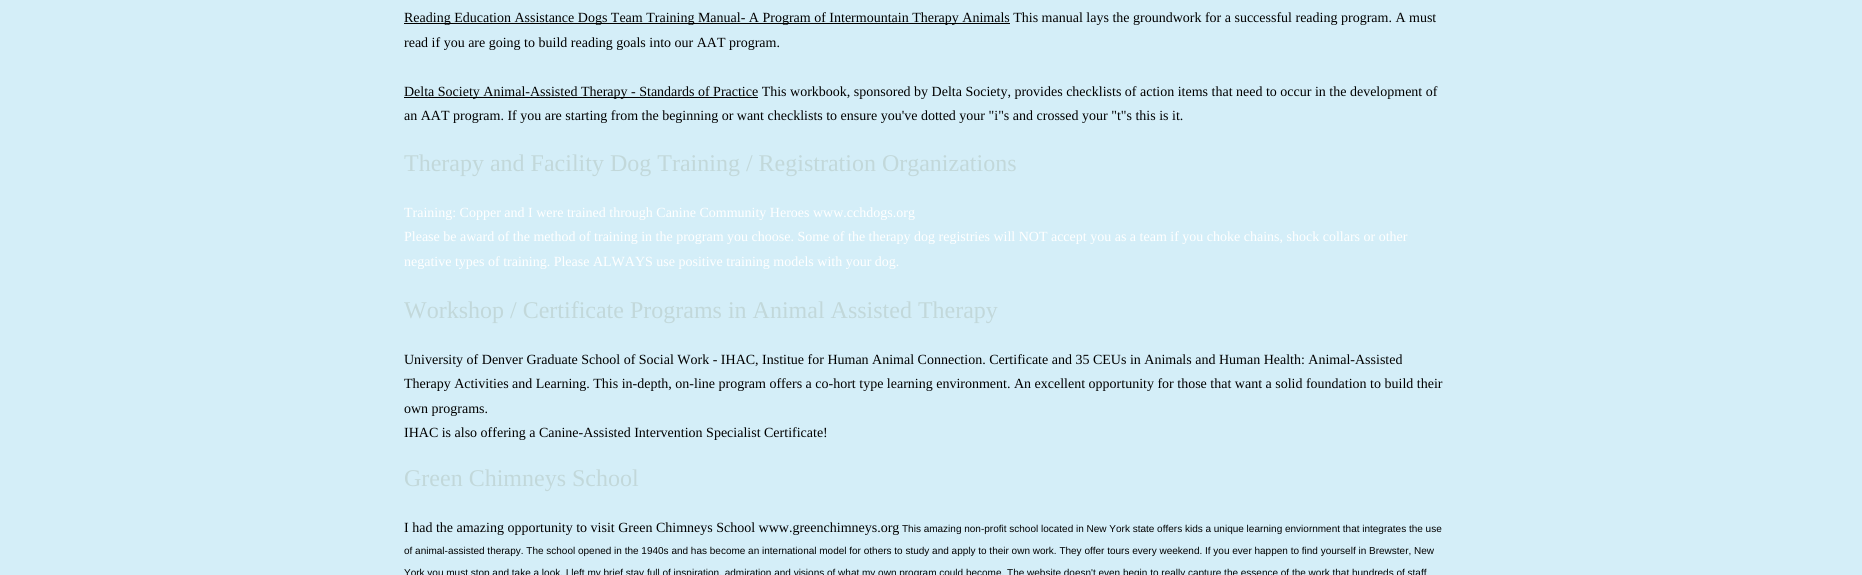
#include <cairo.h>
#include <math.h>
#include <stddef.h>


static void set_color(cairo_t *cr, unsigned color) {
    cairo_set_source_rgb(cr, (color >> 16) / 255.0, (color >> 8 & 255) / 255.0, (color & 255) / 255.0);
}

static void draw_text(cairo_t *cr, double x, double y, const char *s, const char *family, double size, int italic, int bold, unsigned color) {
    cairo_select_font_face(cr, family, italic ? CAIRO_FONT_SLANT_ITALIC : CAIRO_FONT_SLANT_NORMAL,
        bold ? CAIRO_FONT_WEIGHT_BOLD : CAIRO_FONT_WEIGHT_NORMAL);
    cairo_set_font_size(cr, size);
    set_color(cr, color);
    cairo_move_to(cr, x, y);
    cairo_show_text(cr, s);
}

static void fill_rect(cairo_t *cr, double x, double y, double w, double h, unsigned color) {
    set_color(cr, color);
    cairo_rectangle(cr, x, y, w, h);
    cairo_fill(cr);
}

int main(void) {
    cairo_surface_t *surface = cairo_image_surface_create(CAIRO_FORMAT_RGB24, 1862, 575);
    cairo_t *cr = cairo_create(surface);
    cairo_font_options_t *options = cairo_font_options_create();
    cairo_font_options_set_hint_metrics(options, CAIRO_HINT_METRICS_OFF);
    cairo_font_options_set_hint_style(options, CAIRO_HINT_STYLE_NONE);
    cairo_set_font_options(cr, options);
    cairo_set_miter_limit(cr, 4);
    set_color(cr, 0xD4EEF8);
    cairo_paint(cr);
    fill_rect(cr, 404, 23, 606, 1, 0x000000);
    draw_text(cr, 404, 22, "Reading Education Assistance Dogs Team Training Manual- A Program of Intermountain Therapy Animals This manual lays the groundwork for a successful reading program. A must", "Liberation Serif", 14, 0, 0, 0x000000);
    draw_text(cr, 404, 47, "read if you are going to build reading goals into our AAT program.", "Liberation Serif", 14, 0, 0, 0x000000);
    fill_rect(cr, 404, 97, 354, 1, 0x000000);
    draw_text(cr, 404, 96, "Delta Society Animal-Assisted Therapy - Standards of Practice This workbook, sponsored by Delta Society, provides checklists of action items that need to occur in the development of", "Liberation Serif", 14, 0, 0, 0x000000);
    draw_text(cr, 404, 120, "an AAT program. If you are starting from the beginning or want checklists to ensure you've dotted your \"i\"s and crossed your \"t\"s this is it.", "Liberation Serif", 14, 0, 0, 0x000000);
    draw_text(cr, 404, 171, "Therapy and Facility Dog Training / Registration Organizations", "Liberation Serif", 24, 0, 0, 0xC2D8DA);
    draw_text(cr, 404, 217, "Training: Copper and I were trained through Canine Community Heroes www.cchdogs.org", "Liberation Serif", 14, 0, 0, 0xFFFFFF);
    draw_text(cr, 404, 241, "Please be award of the method of training in the program you choose. Some of the therapy dog registries will NOT accept you as a team if you choke chains, shock collars or other", "Liberation Serif", 14, 0, 0, 0xFFFFFF);
    draw_text(cr, 404, 266, "negative types of training. Please ALWAYS use positive training models with your dog.", "Liberation Serif", 14, 0, 0, 0xFFFFFF);
    draw_text(cr, 404, 318, "Workshop / Certificate Programs in Animal Assisted Therapy", "Liberation Serif", 24, 0, 0, 0xC2D8DA);
    draw_text(cr, 404, 364, "University of Denver Graduate School of Social Work - IHAC, Institue for Human Animal Connection. Certificate and 35 CEUs in Animals and Human Health: Animal-Assisted", "Liberation Serif", 14, 0, 0, 0x000000);
    draw_text(cr, 404, 388, "Therapy Activities and Learning. This in-depth, on-line program offers a co-hort type learning environment. An excellent opportunity for those that want a solid foundation to build their", "Liberation Serif", 14, 0, 0, 0x000000);
    draw_text(cr, 404, 413, "own programs.", "Liberation Serif", 14, 0, 0, 0x000000);
    draw_text(cr, 404, 437, "IHAC is also offering a Canine-Assisted Intervention Specialist Certificate!", "Liberation Serif", 14, 0, 0, 0x000000);
    draw_text(cr, 404, 486, "Green Chimneys School", "Liberation Serif", 24, 0, 0, 0xC2D8DA);
    draw_text(cr, 404, 532, "I had the amazing opportunity to visit Green Chimneys School www.greenchimneys.org", "Liberation Serif", 14, 0, 0, 0x000000);
    draw_text(cr, 902, 532, "This amazing non-profit school located in New York state offers kids a unique learning enviornment that integrates the use", "Liberation Sans", 10, 0, 0, 0x000000);
    draw_text(cr, 404, 554, "of animal-assisted therapy. The school opened in the 1940s and has become an international model for others to study and apply to their own work. They offer tours every weekend. If you ever happen to find yourself in Brewster, New", "Liberation Sans", 10, 0, 0, 0x000000);
    draw_text(cr, 404, 576, "York you must stop and take a look. I left my brief stay full of inspiration, admiration and visions of what my own program could become. The website doesn't even begin to really capture the essence of the work that hundreds of staff", "Liberation Sans", 10, 0, 0, 0x000000);
    cairo_surface_write_to_png(surface, "output.png");
    cairo_font_options_destroy(options);
    cairo_destroy(cr);
    cairo_surface_destroy(surface);
    return 0;
}
